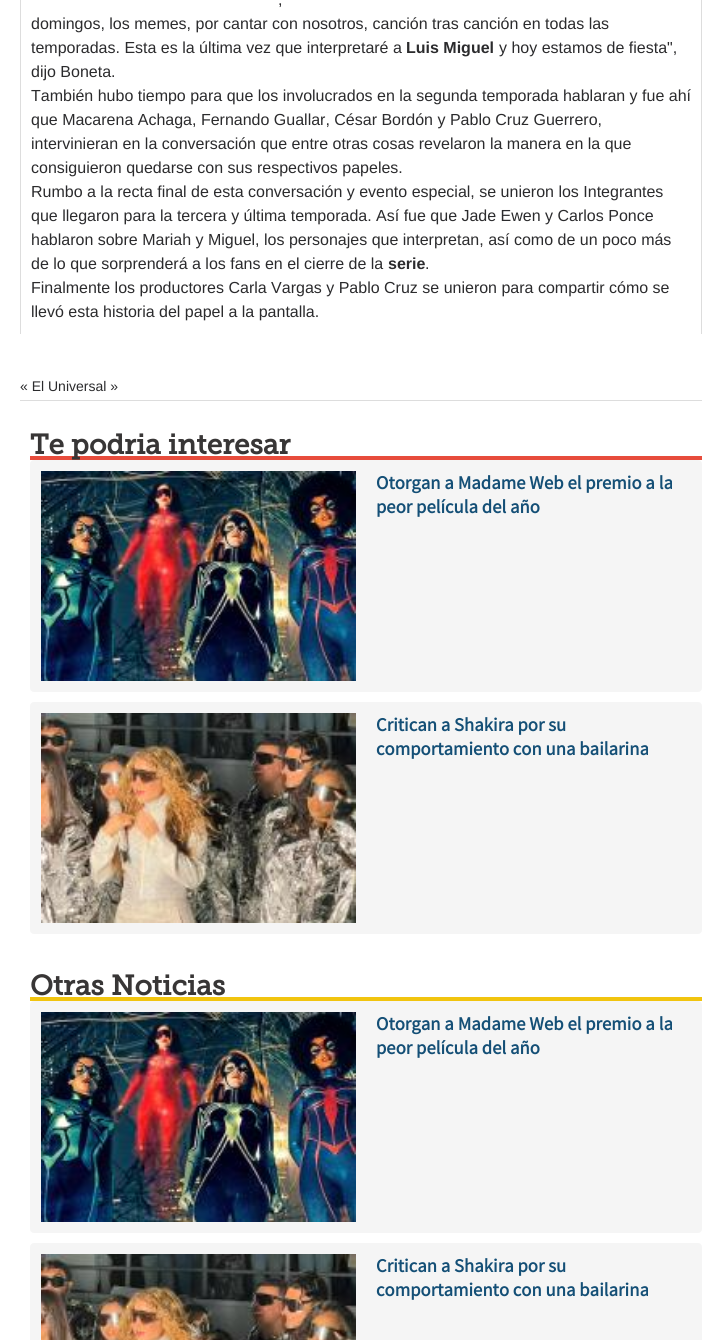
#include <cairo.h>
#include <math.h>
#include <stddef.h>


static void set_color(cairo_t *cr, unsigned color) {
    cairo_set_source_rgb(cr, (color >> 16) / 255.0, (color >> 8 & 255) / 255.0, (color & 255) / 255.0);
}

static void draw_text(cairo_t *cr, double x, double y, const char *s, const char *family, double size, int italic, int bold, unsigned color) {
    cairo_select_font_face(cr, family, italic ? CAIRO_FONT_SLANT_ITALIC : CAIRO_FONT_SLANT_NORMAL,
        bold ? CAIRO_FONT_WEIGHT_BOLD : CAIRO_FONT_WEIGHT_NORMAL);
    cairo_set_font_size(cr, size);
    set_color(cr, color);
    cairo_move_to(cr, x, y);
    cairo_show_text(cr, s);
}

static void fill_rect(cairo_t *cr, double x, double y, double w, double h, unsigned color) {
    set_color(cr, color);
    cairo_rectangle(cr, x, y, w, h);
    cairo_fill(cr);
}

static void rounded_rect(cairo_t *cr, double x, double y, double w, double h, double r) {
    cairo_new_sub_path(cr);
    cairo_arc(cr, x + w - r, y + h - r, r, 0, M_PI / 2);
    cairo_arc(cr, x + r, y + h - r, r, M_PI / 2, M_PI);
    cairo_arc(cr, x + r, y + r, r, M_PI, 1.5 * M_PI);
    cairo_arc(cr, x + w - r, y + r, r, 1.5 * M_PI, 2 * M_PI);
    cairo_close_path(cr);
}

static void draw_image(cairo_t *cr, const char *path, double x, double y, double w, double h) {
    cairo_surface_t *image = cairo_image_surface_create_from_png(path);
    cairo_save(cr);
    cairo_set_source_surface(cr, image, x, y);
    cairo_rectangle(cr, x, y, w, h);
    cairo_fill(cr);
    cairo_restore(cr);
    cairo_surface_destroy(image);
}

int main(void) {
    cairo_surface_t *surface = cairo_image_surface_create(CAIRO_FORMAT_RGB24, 722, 1340);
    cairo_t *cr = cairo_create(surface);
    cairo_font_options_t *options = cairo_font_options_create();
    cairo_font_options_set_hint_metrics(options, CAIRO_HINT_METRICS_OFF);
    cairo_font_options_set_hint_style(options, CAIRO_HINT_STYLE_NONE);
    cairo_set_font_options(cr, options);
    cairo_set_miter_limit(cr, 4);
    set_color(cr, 0xFFFFFF);
    cairo_paint(cr);
    fill_rect(cr, 701, 0, 1, 334, 0xDDDDDD);
    fill_rect(cr, 20, 0, 1, 334, 0xDDDDDD);
    draw_text(cr, 278, 5, ",", "Liberation Sans", 16, 0, 0, 0x2B2B2D);
    draw_text(cr, 31, 29, "domingos, los memes, por cantar con nosotros, canción tras canción en todas las", "Liberation Sans", 16, 0, 0, 0x2B2B2D);
    draw_text(cr, 31, 53, "temporadas. Esta es la última vez que interpretaré a", "Liberation Sans", 16, 0, 0, 0x2B2B2D);
    draw_text(cr, 406, 53, "Luis Miguel", "Liberation Sans", 16, 0, 1, 0x2B2B2D);
    draw_text(cr, 499, 53, "y hoy estamos de fiesta\",", "Liberation Sans", 16, 0, 0, 0x2B2B2D);
    draw_text(cr, 31, 77, "dijo Boneta.", "Liberation Sans", 16, 0, 0, 0x2B2B2D);
    draw_text(cr, 31, 101, "También hubo tiempo para que los involucrados en la segunda temporada hablaran y fue ahí", "Liberation Sans", 16, 0, 0, 0x2B2B2D);
    draw_text(cr, 31, 125, "que Macarena Achaga, Fernando Guallar, César Bordón y Pablo Cruz Guerrero,", "Liberation Sans", 16, 0, 0, 0x2B2B2D);
    draw_text(cr, 31, 149, "intervinieran en la conversación que entre otras cosas revelaron la manera en la que", "Liberation Sans", 16, 0, 0, 0x2B2B2D);
    draw_text(cr, 31, 173, "consiguieron quedarse con sus respectivos papeles.", "Liberation Sans", 16, 0, 0, 0x2B2B2D);
    draw_text(cr, 31, 197, "Rumbo a la recta final de esta conversación y evento especial, se unieron los Integrantes", "Liberation Sans", 16, 0, 0, 0x2B2B2D);
    draw_text(cr, 31, 221, "que llegaron para la tercera y última temporada. Así fue que Jade Ewen y Carlos Ponce", "Liberation Sans", 16, 0, 0, 0x2B2B2D);
    draw_text(cr, 31, 245, "hablaron sobre Mariah y Miguel, los personajes que interpretan, así como de un poco más", "Liberation Sans", 16, 0, 0, 0x2B2B2D);
    draw_text(cr, 31, 269, "de lo que sorprenderá a los fans en el cierre de la", "Liberation Sans", 16, 0, 0, 0x2B2B2D);
    draw_text(cr, 388, 269, "serie", "Liberation Sans", 16, 0, 1, 0x2B2B2D);
    draw_text(cr, 425, 269, ".", "Liberation Sans", 16, 0, 0, 0x2B2B2D);
    draw_text(cr, 31, 293, "Finalmente los productores Carla Vargas y Pablo Cruz se unieron para compartir cómo se", "Liberation Sans", 16, 0, 0, 0x2B2B2D);
    draw_text(cr, 31, 317, "llevó esta historia del papel a la pantalla.", "Liberation Sans", 16, 0, 0, 0x2B2B2D);
    draw_text(cr, 20, 391, "« El Universal »", "Liberation Sans", 14, 0, 0, 0x2B2B2D);
    fill_rect(cr, 20, 400, 682, 1, 0xDDDDDD);
    fill_rect(cr, 30, 456, 672, 4, 0xE74C3C);
    draw_text(cr, 30, 454, "Te podria interesar", "Museo Slab", 28, 0, 1, 0x383636);
    set_color(cr, 0xF5F5F5);
    rounded_rect(cr, 30, 460, 672, 232, 4);
    cairo_fill(cr);
    draw_image(cr, "assets/img1.png", 41, 471, 315, 210);
    draw_text(cr, 376, 489, "Otorgan a Madame Web el premio a la", "Source Sans Pro", 18.7, 0, 1, 0x144F76);
    draw_text(cr, 376, 513, "peor película del año", "Source Sans Pro", 18.7, 0, 1, 0x144F76);
    set_color(cr, 0xF5F5F5);
    rounded_rect(cr, 30, 702, 672, 232, 4);
    cairo_fill(cr);
    draw_image(cr, "assets/img2.png", 41, 713, 315, 210);
    draw_text(cr, 376, 731, "Critican a Shakira por su", "Source Sans Pro", 18.7, 0, 1, 0x144F76);
    draw_text(cr, 376, 755, "comportamiento con una bailarina", "Source Sans Pro", 18.7, 0, 1, 0x144F76);
    draw_text(cr, 30, 995, "Otras Noticias", "Museo Slab", 28, 0, 1, 0x383636);
    fill_rect(cr, 30, 997, 672, 4, 0xF1C40F);
    set_color(cr, 0xF5F5F5);
    rounded_rect(cr, 30, 1001, 672, 232, 4);
    cairo_fill(cr);
    draw_image(cr, "assets/img1.png", 41, 1012, 315, 210);
    draw_text(cr, 376, 1030, "Otorgan a Madame Web el premio a la", "Source Sans Pro", 18.7, 0, 1, 0x144F76);
    draw_text(cr, 376, 1054, "peor película del año", "Source Sans Pro", 18.7, 0, 1, 0x144F76);
    set_color(cr, 0xF5F5F5);
    rounded_rect(cr, 30, 1243, 672, 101, 4);
    cairo_fill(cr);
    draw_image(cr, "assets/img3.png", 41, 1254, 315, 86);
    draw_text(cr, 376, 1272, "Critican a Shakira por su", "Source Sans Pro", 18.7, 0, 1, 0x144F76);
    draw_text(cr, 376, 1296, "comportamiento con una bailarina", "Source Sans Pro", 18.7, 0, 1, 0x144F76);
    cairo_surface_write_to_png(surface, "output.png");
    cairo_font_options_destroy(options);
    cairo_destroy(cr);
    cairo_surface_destroy(surface);
    return 0;
}
